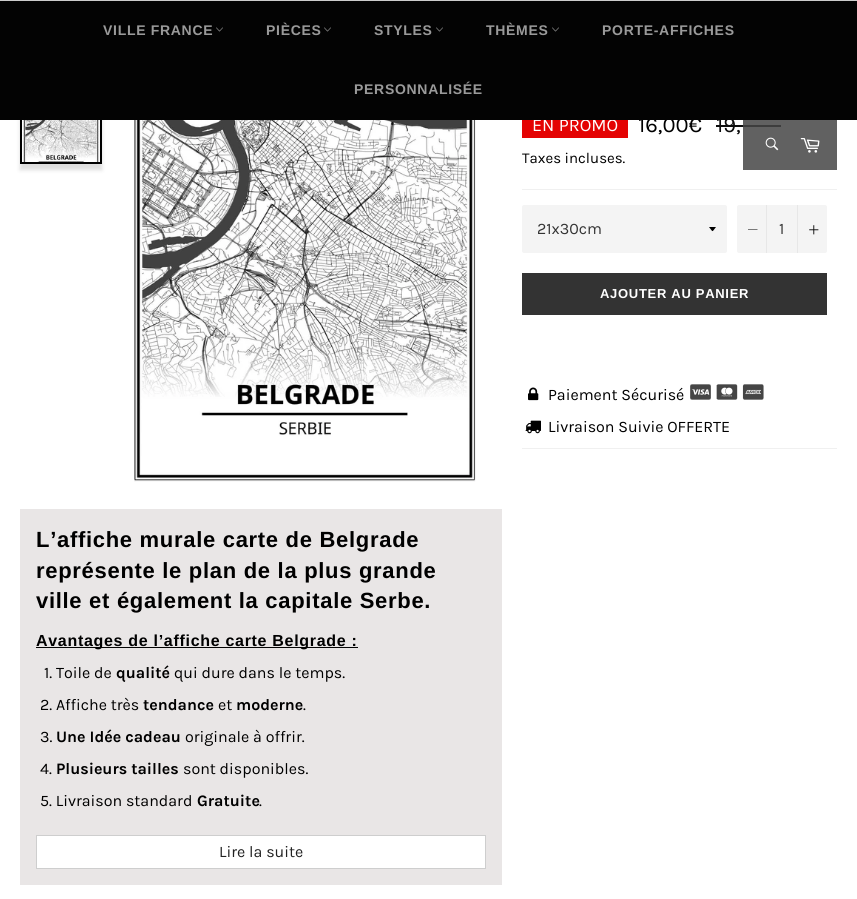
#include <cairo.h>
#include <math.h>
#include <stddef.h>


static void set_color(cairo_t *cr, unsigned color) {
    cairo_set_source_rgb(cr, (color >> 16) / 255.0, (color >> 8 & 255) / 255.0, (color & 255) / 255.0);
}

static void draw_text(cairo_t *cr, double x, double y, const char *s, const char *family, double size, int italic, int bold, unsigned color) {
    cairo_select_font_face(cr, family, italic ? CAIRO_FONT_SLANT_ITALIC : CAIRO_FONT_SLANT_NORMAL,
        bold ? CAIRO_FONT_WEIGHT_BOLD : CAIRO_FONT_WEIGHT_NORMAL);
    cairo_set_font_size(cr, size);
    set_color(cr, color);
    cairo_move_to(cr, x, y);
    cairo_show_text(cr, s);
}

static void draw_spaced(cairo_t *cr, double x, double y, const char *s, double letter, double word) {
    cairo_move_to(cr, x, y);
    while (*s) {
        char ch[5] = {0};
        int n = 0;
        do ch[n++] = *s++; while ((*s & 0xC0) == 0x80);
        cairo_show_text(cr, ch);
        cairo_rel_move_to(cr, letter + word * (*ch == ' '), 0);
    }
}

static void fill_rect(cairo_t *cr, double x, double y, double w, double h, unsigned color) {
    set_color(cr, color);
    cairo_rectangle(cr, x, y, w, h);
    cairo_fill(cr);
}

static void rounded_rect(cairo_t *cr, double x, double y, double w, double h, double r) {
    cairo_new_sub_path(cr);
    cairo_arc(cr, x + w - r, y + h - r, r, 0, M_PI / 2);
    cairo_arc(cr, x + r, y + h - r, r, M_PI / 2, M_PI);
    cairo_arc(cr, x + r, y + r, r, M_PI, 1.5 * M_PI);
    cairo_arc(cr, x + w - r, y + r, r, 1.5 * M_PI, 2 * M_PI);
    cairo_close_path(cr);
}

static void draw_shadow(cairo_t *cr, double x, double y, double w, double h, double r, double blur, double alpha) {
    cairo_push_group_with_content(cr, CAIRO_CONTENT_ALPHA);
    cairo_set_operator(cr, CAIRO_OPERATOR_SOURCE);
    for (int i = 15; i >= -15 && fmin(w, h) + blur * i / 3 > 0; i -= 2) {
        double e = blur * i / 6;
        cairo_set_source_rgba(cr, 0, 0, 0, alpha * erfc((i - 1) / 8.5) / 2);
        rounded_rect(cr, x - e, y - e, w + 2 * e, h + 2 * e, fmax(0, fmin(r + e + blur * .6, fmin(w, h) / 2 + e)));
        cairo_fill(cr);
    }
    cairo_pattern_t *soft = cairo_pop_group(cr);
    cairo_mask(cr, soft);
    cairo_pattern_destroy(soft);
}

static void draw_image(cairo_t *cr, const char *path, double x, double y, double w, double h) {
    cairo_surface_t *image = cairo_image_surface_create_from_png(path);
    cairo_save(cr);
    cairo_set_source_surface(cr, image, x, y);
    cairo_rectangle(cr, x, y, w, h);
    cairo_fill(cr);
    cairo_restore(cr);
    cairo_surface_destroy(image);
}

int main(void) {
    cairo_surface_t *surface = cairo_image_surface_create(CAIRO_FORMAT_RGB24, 857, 899);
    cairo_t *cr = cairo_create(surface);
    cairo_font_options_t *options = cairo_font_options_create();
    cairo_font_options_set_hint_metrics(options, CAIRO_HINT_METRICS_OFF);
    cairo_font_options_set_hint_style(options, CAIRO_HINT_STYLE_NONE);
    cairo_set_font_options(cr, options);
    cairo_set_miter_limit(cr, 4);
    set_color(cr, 0xFFFFFF);
    cairo_paint(cr);
    fill_rect(cr, 522, 120, 106, 18, 0xE40303);
    draw_text(cr, 532, 131, "EN PROMO", "Karla", 18, 0, 0, 0xFFFFFF);
    draw_text(cr, 638, 132, "16,00€", "Karla", 22, 0, 0, 0x000000);
    draw_text(cr, 716, 132, "19,", "Karla", 22, 0, 0, 0x0D0D0D);
    set_color(cr, 0xC7C7C7);
    draw_shadow(cr, 20, 88, 82, 82, 0, 2, 0.6);
    cairo_rectangle(cr, 21, 83, 80, 80);
    set_color(cr, 0x000000);
    cairo_stroke(cr);
    fill_rect(cr, 0, 1, 857, 119, 0x030303);
    fill_rect(cr, 0, 0, 857, 1, 0xCCCCCC);
    cairo_select_font_face(cr, "Liberation Sans", CAIRO_FONT_SLANT_NORMAL, CAIRO_FONT_WEIGHT_BOLD);
    cairo_set_font_size(cr, 14);
    set_color(cr, 0x9A9A9A);
    draw_spaced(cr, 103, 35, "VILLE FRANCE", 0.7, 0);
    draw_image(cr, "assets/img1.png", 216, 27, 7, 5);
    draw_spaced(cr, 266, 35, "PIÈCES", 0.7, 0);
    draw_image(cr, "assets/img1.png", 324, 27, 7, 5);
    draw_spaced(cr, 374, 35, "STYLES", 0.7, 0);
    draw_image(cr, "assets/img1.png", 436, 27, 7, 5);
    draw_spaced(cr, 486, 35, "THÈMES", 0.7, 0);
    draw_image(cr, "assets/img1.png", 552, 27, 7, 5);
    draw_spaced(cr, 602, 35, "PORTE-AFFICHES", 0.7, 0);
    draw_spaced(cr, 354, 94, "PERSONNALISÉE", 0.7, 0);
    fill_rect(cr, 716, 125, 65, 2, 0x0D0D0D);
    cairo_set_source_rgba(cr, 0.275, 0.275, 0.275, 0.85);
    cairo_rectangle(cr, 743, 120, 94, 50);
    cairo_fill(cr);
    draw_image(cr, "assets/img2.png", 765, 137, 14, 14);
    draw_image(cr, "assets/img3.png", 800, 138, 20, 15);
    draw_text(cr, 522, 163, "Taxes incluses.", "Karla", 15, 0, 0, 0x000000);
    fill_rect(cr, 522, 189, 315, 1, 0xF0F0F0);
    set_color(cr, 0xF4F4F4);
    rounded_rect(cr, 522, 205, 205, 48, 2);
    cairo_fill(cr);
    set_color(cr, 0x000000);
    cairo_new_path(cr);
    cairo_move_to(cr, 709, 227);
    cairo_curve_to(cr, 713.5, 232.5, 711.5, 232.5, 716, 227);
    cairo_close_path(cr);
    cairo_fill(cr);
    draw_text(cr, 537, 234, "21x30cm", "Karla", 16, 0, 0, 0x333333);
    set_color(cr, 0xF4F4F4);
    rounded_rect(cr, 737, 205, 90, 48, 2);
    cairo_fill(cr);
    fill_rect(cr, 766, 205, 1, 48, 0xE7E7E7);
    set_color(cr, 0x000000);
    cairo_set_fill_rule(cr, CAIRO_FILL_RULE_EVEN_ODD);
    cairo_new_path(cr);
    cairo_move_to(cr, 757.5, 229.5);
    cairo_line_to(cr, 757.5, 230);
    cairo_line_to(cr, 748, 230);
    cairo_line_to(cr, 748, 229.5);
    cairo_close_path(cr);
    cairo_fill(cr);
    draw_text(cr, 779, 234, "1", "Karla", 16, 0, 0, 0x333333);
    fill_rect(cr, 797, 205, 1, 48, 0xE7E7E7);
    draw_image(cr, "assets/img4.png", 809, 225, 10, 10);
    fill_rect(cr, 522, 273, 305, 42, 0x333333);
    cairo_select_font_face(cr, "Liberation Sans", CAIRO_FONT_SLANT_NORMAL, CAIRO_FONT_WEIGHT_BOLD);
    cairo_set_font_size(cr, 13);
    set_color(cr, 0xFFFFFF);
    draw_spaced(cr, 600, 298, "AJOUTER AU PANIER", 0.7, 0);
    draw_image(cr, "assets/img5.png", 528, 387, 11, 14);
    draw_text(cr, 548, 400, "Paiement Sécurisé", "Karla", 16, 0, 0, 0x000000);
    draw_image(cr, "assets/img6.png", 690, 384, 74, 16);
    draw_image(cr, "assets/img7.png", 525, 420, 16, 14);
    draw_text(cr, 548, 432, "Livraison Suivie OFFERTE", "Karla", 16, 0, 0, 0x000000);
    fill_rect(cr, 522, 448, 315, 1, 0xF0F0F0);
    draw_image(cr, "assets/img8.png", 22, 120, 78, 42);
    draw_image(cr, "assets/img9.png", 134, 120, 342, 362);
    fill_rect(cr, 20, 509, 482, 376, 0xE9E6E6);
    cairo_select_font_face(cr, "Liberation Sans", CAIRO_FONT_SLANT_NORMAL, CAIRO_FONT_WEIGHT_BOLD);
    cairo_set_font_size(cr, 22);
    set_color(cr, 0x000000);
    draw_spaced(cr, 36, 547, "L’affiche murale carte de Belgrade", 0.7, 0);
    draw_spaced(cr, 36, 578, "représente le plan de la plus grande", 0.7, 0);
    draw_spaced(cr, 36, 608, "ville et également la capitale Serbe.", 0.7, 0);
    fill_rect(cr, 36, 647, 322, 1, 0x030303);
    cairo_set_font_size(cr, 16);
    set_color(cr, 0x000000);
    draw_spaced(cr, 36, 646, "Avantages de l’affiche carte Belgrade :", 0.7, 0);
    draw_text(cr, 44, 678, "1. Toile de", "Karla", 16, 0, 0, 0x000000);
    draw_text(cr, 116, 678, "qualité", "Karla", 16, 0, 1, 0x000000);
    draw_text(cr, 174, 678, "qui dure dans le temps.", "Karla", 16, 0, 0, 0x000000);
    draw_text(cr, 40, 710, "2. Affiche très", "Karla", 16, 0, 0, 0x000000);
    draw_text(cr, 143, 710, "tendance", "Karla", 16, 0, 1, 0x000000);
    draw_text(cr, 218, 710, "et", "Karla", 16, 0, 0, 0x000000);
    draw_text(cr, 236, 710, "moderne", "Karla", 16, 0, 1, 0x000000);
    draw_text(cr, 303, 710, ".", "Karla", 16, 0, 0, 0x000000);
    draw_text(cr, 40, 742, "3.", "Karla", 16, 0, 0, 0x000000);
    draw_text(cr, 56, 742, "Une Idée cadeau", "Karla", 16, 0, 1, 0x000000);
    draw_text(cr, 185, 742, "originale à offrir.", "Karla", 16, 0, 0, 0x000000);
    draw_text(cr, 40, 774, "4.", "Karla", 16, 0, 0, 0x000000);
    draw_text(cr, 56, 774, "Plusieurs tailles", "Karla", 16, 0, 1, 0x000000);
    draw_text(cr, 183, 774, "sont disponibles.", "Karla", 16, 0, 0, 0x000000);
    draw_text(cr, 40, 806, "5. Livraison standard", "Karla", 16, 0, 0, 0x000000);
    draw_text(cr, 197, 806, "Gratuite", "Karla", 16, 0, 1, 0x000000);
    draw_text(cr, 259, 806, ".", "Karla", 16, 0, 0, 0x000000);
    set_color(cr, 0xFFFFFF);
    cairo_rectangle(cr, 36.5, 835.5, 449, 33);
    cairo_fill_preserve(cr);
    set_color(cr, 0xCECECE);
    cairo_set_line_width(cr, 1);
    cairo_stroke(cr);
    draw_text(cr, 219, 857, "Lire la suite", "Karla", 16, 0, 0, 0x212121);
    cairo_surface_write_to_png(surface, "output.png");
    cairo_font_options_destroy(options);
    cairo_destroy(cr);
    cairo_surface_destroy(surface);
    return 0;
}
